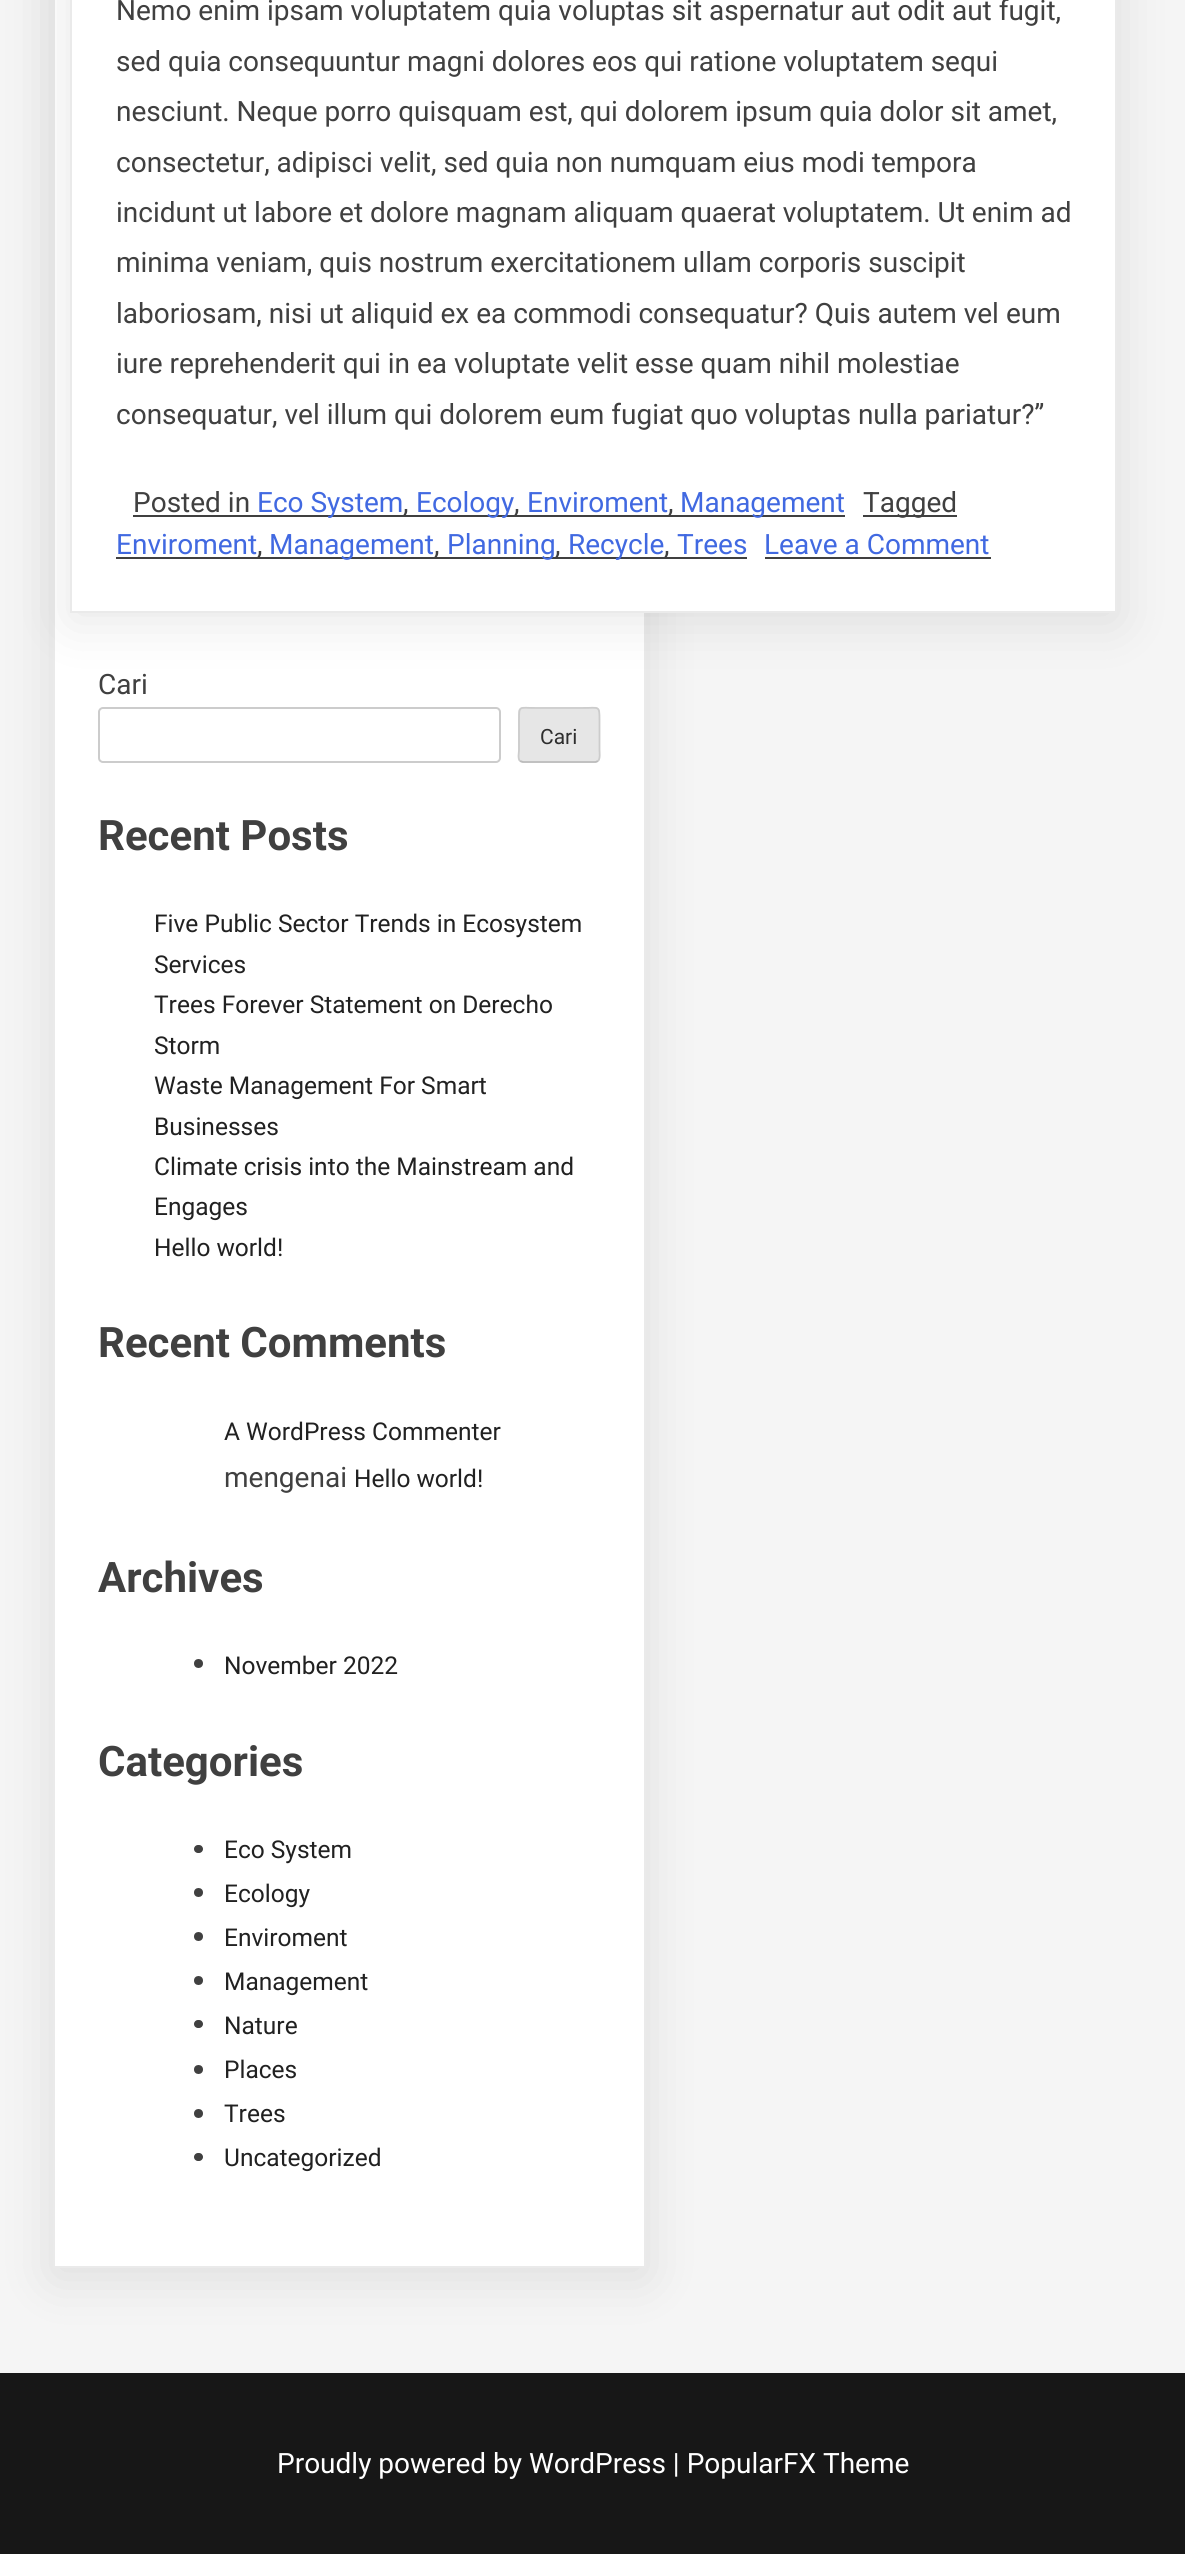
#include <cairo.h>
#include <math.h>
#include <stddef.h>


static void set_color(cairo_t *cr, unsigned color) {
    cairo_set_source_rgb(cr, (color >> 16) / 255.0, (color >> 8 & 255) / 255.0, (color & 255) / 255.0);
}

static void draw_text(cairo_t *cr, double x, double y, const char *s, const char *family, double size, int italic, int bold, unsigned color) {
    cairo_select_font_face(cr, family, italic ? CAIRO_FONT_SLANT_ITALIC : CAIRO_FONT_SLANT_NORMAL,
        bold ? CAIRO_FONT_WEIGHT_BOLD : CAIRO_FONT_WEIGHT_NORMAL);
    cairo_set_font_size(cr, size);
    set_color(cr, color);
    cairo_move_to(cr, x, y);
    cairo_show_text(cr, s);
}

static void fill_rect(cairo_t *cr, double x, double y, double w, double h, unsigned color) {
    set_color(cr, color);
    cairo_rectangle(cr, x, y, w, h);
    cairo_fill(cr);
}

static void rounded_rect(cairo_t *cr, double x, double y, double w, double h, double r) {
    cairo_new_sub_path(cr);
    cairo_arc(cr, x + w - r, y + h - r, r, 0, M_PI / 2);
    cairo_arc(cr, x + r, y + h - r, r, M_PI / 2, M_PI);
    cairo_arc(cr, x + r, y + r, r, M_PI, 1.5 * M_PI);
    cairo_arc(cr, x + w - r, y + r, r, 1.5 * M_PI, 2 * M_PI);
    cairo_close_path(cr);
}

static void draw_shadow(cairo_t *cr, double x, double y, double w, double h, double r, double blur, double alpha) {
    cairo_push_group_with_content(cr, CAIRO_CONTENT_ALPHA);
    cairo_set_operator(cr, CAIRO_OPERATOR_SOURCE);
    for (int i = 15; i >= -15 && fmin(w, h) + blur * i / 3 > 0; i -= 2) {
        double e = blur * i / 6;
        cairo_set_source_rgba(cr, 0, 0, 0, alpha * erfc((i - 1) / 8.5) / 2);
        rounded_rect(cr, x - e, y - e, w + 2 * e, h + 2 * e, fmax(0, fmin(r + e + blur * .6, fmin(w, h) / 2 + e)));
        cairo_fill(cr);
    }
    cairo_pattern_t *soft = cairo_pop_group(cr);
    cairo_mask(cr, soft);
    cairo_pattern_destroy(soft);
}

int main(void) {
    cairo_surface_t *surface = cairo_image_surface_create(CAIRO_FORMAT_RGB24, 1185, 2554);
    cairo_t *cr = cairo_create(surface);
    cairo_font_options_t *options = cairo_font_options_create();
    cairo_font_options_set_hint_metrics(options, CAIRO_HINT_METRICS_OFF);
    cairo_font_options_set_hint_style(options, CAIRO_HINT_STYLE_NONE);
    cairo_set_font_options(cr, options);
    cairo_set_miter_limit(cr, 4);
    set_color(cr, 0xF5F5F5);
    cairo_paint(cr);
    set_color(cr, 0x000000);
    draw_shadow(cr, 53, -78, 593, 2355, 0, 26, 0.1);
    set_color(cr, 0xFFFFFF);
    cairo_rectangle(cr, 54, -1, 591, 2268);
    cairo_fill_preserve(cr);
    set_color(cr, 0xEAEAEA);
    cairo_stroke(cr);
    set_color(cr, 0x000000);
    draw_shadow(cr, 70, -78, 1047, 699, 0, 26, 0.1);
    set_color(cr, 0xFFFFFF);
    cairo_rectangle(cr, 71, -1, 1045, 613);
    cairo_fill_preserve(cr);
    set_color(cr, 0xEAEAEA);
    cairo_stroke(cr);
    draw_text(cr, 116, 20, "Nemo enim ipsam voluptatem quia voluptas sit aspernatur aut odit aut fugit,", "Roboto", 28, 0, 0, 0x404040);
    draw_text(cr, 116, 71, "sed quia consequuntur magni dolores eos qui ratione voluptatem sequi", "Roboto", 28, 0, 0, 0x404040);
    draw_text(cr, 116, 121, "nesciunt. Neque porro quisquam est, qui dolorem ipsum quia dolor sit amet,", "Roboto", 28, 0, 0, 0x404040);
    draw_text(cr, 116, 172, "consectetur, adipisci velit, sed quia non numquam eius modi tempora", "Roboto", 28, 0, 0, 0x404040);
    draw_text(cr, 116, 222, "incidunt ut labore et dolore magnam aliquam quaerat voluptatem. Ut enim ad", "Roboto", 28, 0, 0, 0x404040);
    draw_text(cr, 116, 272, "minima veniam, quis nostrum exercitationem ullam corporis suscipit", "Roboto", 28, 0, 0, 0x404040);
    draw_text(cr, 116, 323, "laboriosam, nisi ut aliquid ex ea commodi consequatur? Quis autem vel eum", "Roboto", 28, 0, 0, 0x404040);
    draw_text(cr, 116, 373, "iure reprehenderit qui in ea voluptate velit esse quam nihil molestiae", "Roboto", 28, 0, 0, 0x404040);
    draw_text(cr, 116, 424, "consequatur, vel illum qui dolorem eum fugiat quo voluptas nulla pariatur?”", "Roboto", 28, 0, 0, 0x404040);
    draw_text(cr, 133, 512, "Posted in", "Roboto", 28, 0, 0, 0x404040);
    fill_rect(cr, 133, 515, 712, 2, 0x404040);
    draw_text(cr, 257, 512, "Eco System", "Roboto", 28, 0, 0, 0x4169E1);
    draw_text(cr, 403, 512, ",", "Roboto", 28, 0, 0, 0x404040);
    draw_text(cr, 416, 512, "Ecology", "Roboto", 28, 0, 0, 0x4169E1);
    draw_text(cr, 514, 512, ",", "Roboto", 28, 0, 0, 0x404040);
    draw_text(cr, 527, 512, "Enviroment", "Roboto", 28, 0, 0, 0x4169E1);
    draw_text(cr, 668, 512, ",", "Roboto", 28, 0, 0, 0x404040);
    draw_text(cr, 680, 512, "Management", "Roboto", 28, 0, 0, 0x4169E1);
    fill_rect(cr, 863, 515, 94, 2, 0x404040);
    draw_text(cr, 863, 512, "Tagged", "Roboto", 28, 0, 0, 0x404040);
    draw_text(cr, 116, 554, "Enviroment", "Roboto", 28, 0, 0, 0x4169E1);
    fill_rect(cr, 116, 557, 547, 2, 0x404040);
    draw_text(cr, 257, 554, ",", "Roboto", 28, 0, 0, 0x404040);
    draw_text(cr, 269, 554, "Management", "Roboto", 28, 0, 0, 0x4169E1);
    draw_text(cr, 434, 554, ",", "Roboto", 28, 0, 0, 0x404040);
    draw_text(cr, 447, 554, "Planning", "Roboto", 28, 0, 0, 0x4169E1);
    draw_text(cr, 555, 554, ",", "Roboto", 28, 0, 0, 0x404040);
    draw_text(cr, 568, 554, "Recycle", "Roboto", 28, 0, 0, 0x4169E1);
    fill_rect(cr, 663, 557, 84, 2, 0x404040);
    draw_text(cr, 664, 554, ",", "Roboto", 28, 0, 0, 0x404040);
    draw_text(cr, 677, 554, "Trees", "Roboto", 28, 0, 0, 0x4169E1);
    draw_text(cr, 764, 554, "Leave a Comment", "Roboto", 28, 0, 0, 0x4169E1);
    fill_rect(cr, 765, 557, 226, 2, 0x404040);
    draw_text(cr, 98, 694, "Cari", "Roboto", 28, 0, 0, 0x404040);
    rounded_rect(cr, 99, 708, 401, 54, 4);
    set_color(cr, 0xCCCCCC);
    cairo_stroke(cr);
    set_color(cr, 0xE6E6E6);
    rounded_rect(cr, 518, 707, 82, 56, 5);
    cairo_fill(cr);
    cairo_new_path(cr);
    cairo_move_to(cr, 598, 761);
    cairo_line_to(cr, 595.5, 762);
    cairo_line_to(cr, 523, 762);
    cairo_line_to(cr, 520, 761);
    set_color(cr, 0xBBBBBB);
    cairo_set_line_width(cr, 1.8);
    cairo_stroke(cr);
    cairo_new_path(cr);
    cairo_move_to(cr, 520, 761);
    cairo_curve_to(cr, 517.5, 758.5, 519, 752.5, 519, 750);
    cairo_line_to(cr, 519, 720);
    cairo_curve_to(cr, 519, 705, 519.5, 708, 535, 708);
    cairo_line_to(cr, 583, 708);
    cairo_curve_to(cr, 599, 708, 599.5, 705, 599.5, 720);
    cairo_line_to(cr, 599.5, 750);
    cairo_curve_to(cr, 599.5, 752.5, 600.5, 758.5, 598, 761);
    set_color(cr, 0xCCCCCC);
    cairo_stroke(cr);
    draw_text(cr, 540, 744, "Cari", "Roboto", 21, 0, 0, 0x2E2E2E);
    draw_text(cr, 98, 850, "Recent Posts", "Roboto", 42, 0, 1, 0x404040);
    draw_text(cr, 154, 932, "Five Public Sector Trends in Ecosystem", "Roboto", 24.5, 0, 0, 0x212121);
    draw_text(cr, 154, 973, "Services", "Roboto", 24.5, 0, 0, 0x212121);
    draw_text(cr, 154, 1013, "Trees Forever Statement on Derecho", "Roboto", 24.5, 0, 0, 0x212121);
    draw_text(cr, 154, 1054, "Storm", "Roboto", 24.5, 0, 0, 0x212121);
    draw_text(cr, 154, 1094, "Waste Management For Smart", "Roboto", 24.5, 0, 0, 0x212121);
    draw_text(cr, 154, 1135, "Businesses", "Roboto", 24.5, 0, 0, 0x212121);
    draw_text(cr, 154, 1175, "Climate crisis into the Mainstream and", "Roboto", 24.5, 0, 0, 0x212121);
    draw_text(cr, 154, 1215, "Engages", "Roboto", 24.5, 0, 0, 0x212121);
    draw_text(cr, 154, 1256, "Hello world!", "Roboto", 24.5, 0, 0, 0x212121);
    draw_text(cr, 98, 1357, "Recent Comments", "Roboto", 42, 0, 1, 0x404040);
    draw_text(cr, 224, 1440, "A WordPress Commenter", "Roboto", 24.5, 0, 0, 0x212121);
    draw_text(cr, 224, 1487, "mengenai", "Roboto", 28, 0, 0, 0x404040);
    draw_text(cr, 354, 1487, "Hello world!", "Roboto", 24.5, 0, 0, 0x212121);
    draw_text(cr, 98, 1592, "Archives", "Roboto", 42, 0, 1, 0x404040);
    cairo_new_path(cr);
    cairo_arc(cr, 198.5, 1663.5, 4.5, 0, 2 * M_PI);
    cairo_fill(cr);
    draw_text(cr, 224, 1674, "November 2022", "Roboto", 24.5, 0, 0, 0x212121);
    draw_text(cr, 98, 1776, "Categories", "Roboto", 42, 0, 1, 0x404040);
    rounded_rect(cr, 194, 1845, 9, 8, 4);
    cairo_fill(cr);
    draw_text(cr, 224, 1858, "Eco System", "Roboto", 24.5, 0, 0, 0x212121);
    set_color(cr, 0x404040);
    cairo_new_path(cr);
    cairo_arc(cr, 198.5, 1892.5, 4.5, 0, 2 * M_PI);
    cairo_fill(cr);
    draw_text(cr, 224, 1902, "Ecology", "Roboto", 24.5, 0, 0, 0x212121);
    set_color(cr, 0x404040);
    cairo_new_path(cr);
    cairo_arc(cr, 198.5, 1936.5, 4.5, 0, 2 * M_PI);
    cairo_fill(cr);
    draw_text(cr, 224, 1946, "Enviroment", "Roboto", 24.5, 0, 0, 0x212121);
    set_color(cr, 0x404040);
    cairo_new_path(cr);
    cairo_arc(cr, 198.5, 1980.5, 4.5, 0, 2 * M_PI);
    cairo_fill(cr);
    draw_text(cr, 224, 1990, "Management", "Roboto", 24.5, 0, 0, 0x212121);
    set_color(cr, 0x404040);
    rounded_rect(cr, 194, 2020, 9, 8, 4);
    cairo_fill(cr);
    draw_text(cr, 224, 2034, "Nature", "Roboto", 24.5, 0, 0, 0x212121);
    set_color(cr, 0x404040);
    cairo_new_path(cr);
    cairo_arc(cr, 198.5, 2069.5, 4.5, 0, 2 * M_PI);
    cairo_fill(cr);
    draw_text(cr, 224, 2078, "Places", "Roboto", 24.5, 0, 0, 0x212121);
    set_color(cr, 0x404040);
    cairo_new_path(cr);
    cairo_arc(cr, 198.5, 2113.5, 4.5, 0, 2 * M_PI);
    cairo_fill(cr);
    draw_text(cr, 224, 2122, "Trees", "Roboto", 24.5, 0, 0, 0x212121);
    set_color(cr, 0x404040);
    rounded_rect(cr, 194, 2153, 9, 8, 4);
    cairo_fill(cr);
    draw_text(cr, 224, 2166, "Uncategorized", "Roboto", 24.5, 0, 0, 0x212121);
    fill_rect(cr, 0, 2373, 1185, 181, 0x171717);
    draw_text(cr, 277, 2473, "Proudly powered by WordPress | PopularFX Theme", "Roboto", 28, 0, 0, 0xFFFFFF);
    cairo_surface_write_to_png(surface, "output.png");
    cairo_font_options_destroy(options);
    cairo_destroy(cr);
    cairo_surface_destroy(surface);
    return 0;
}
